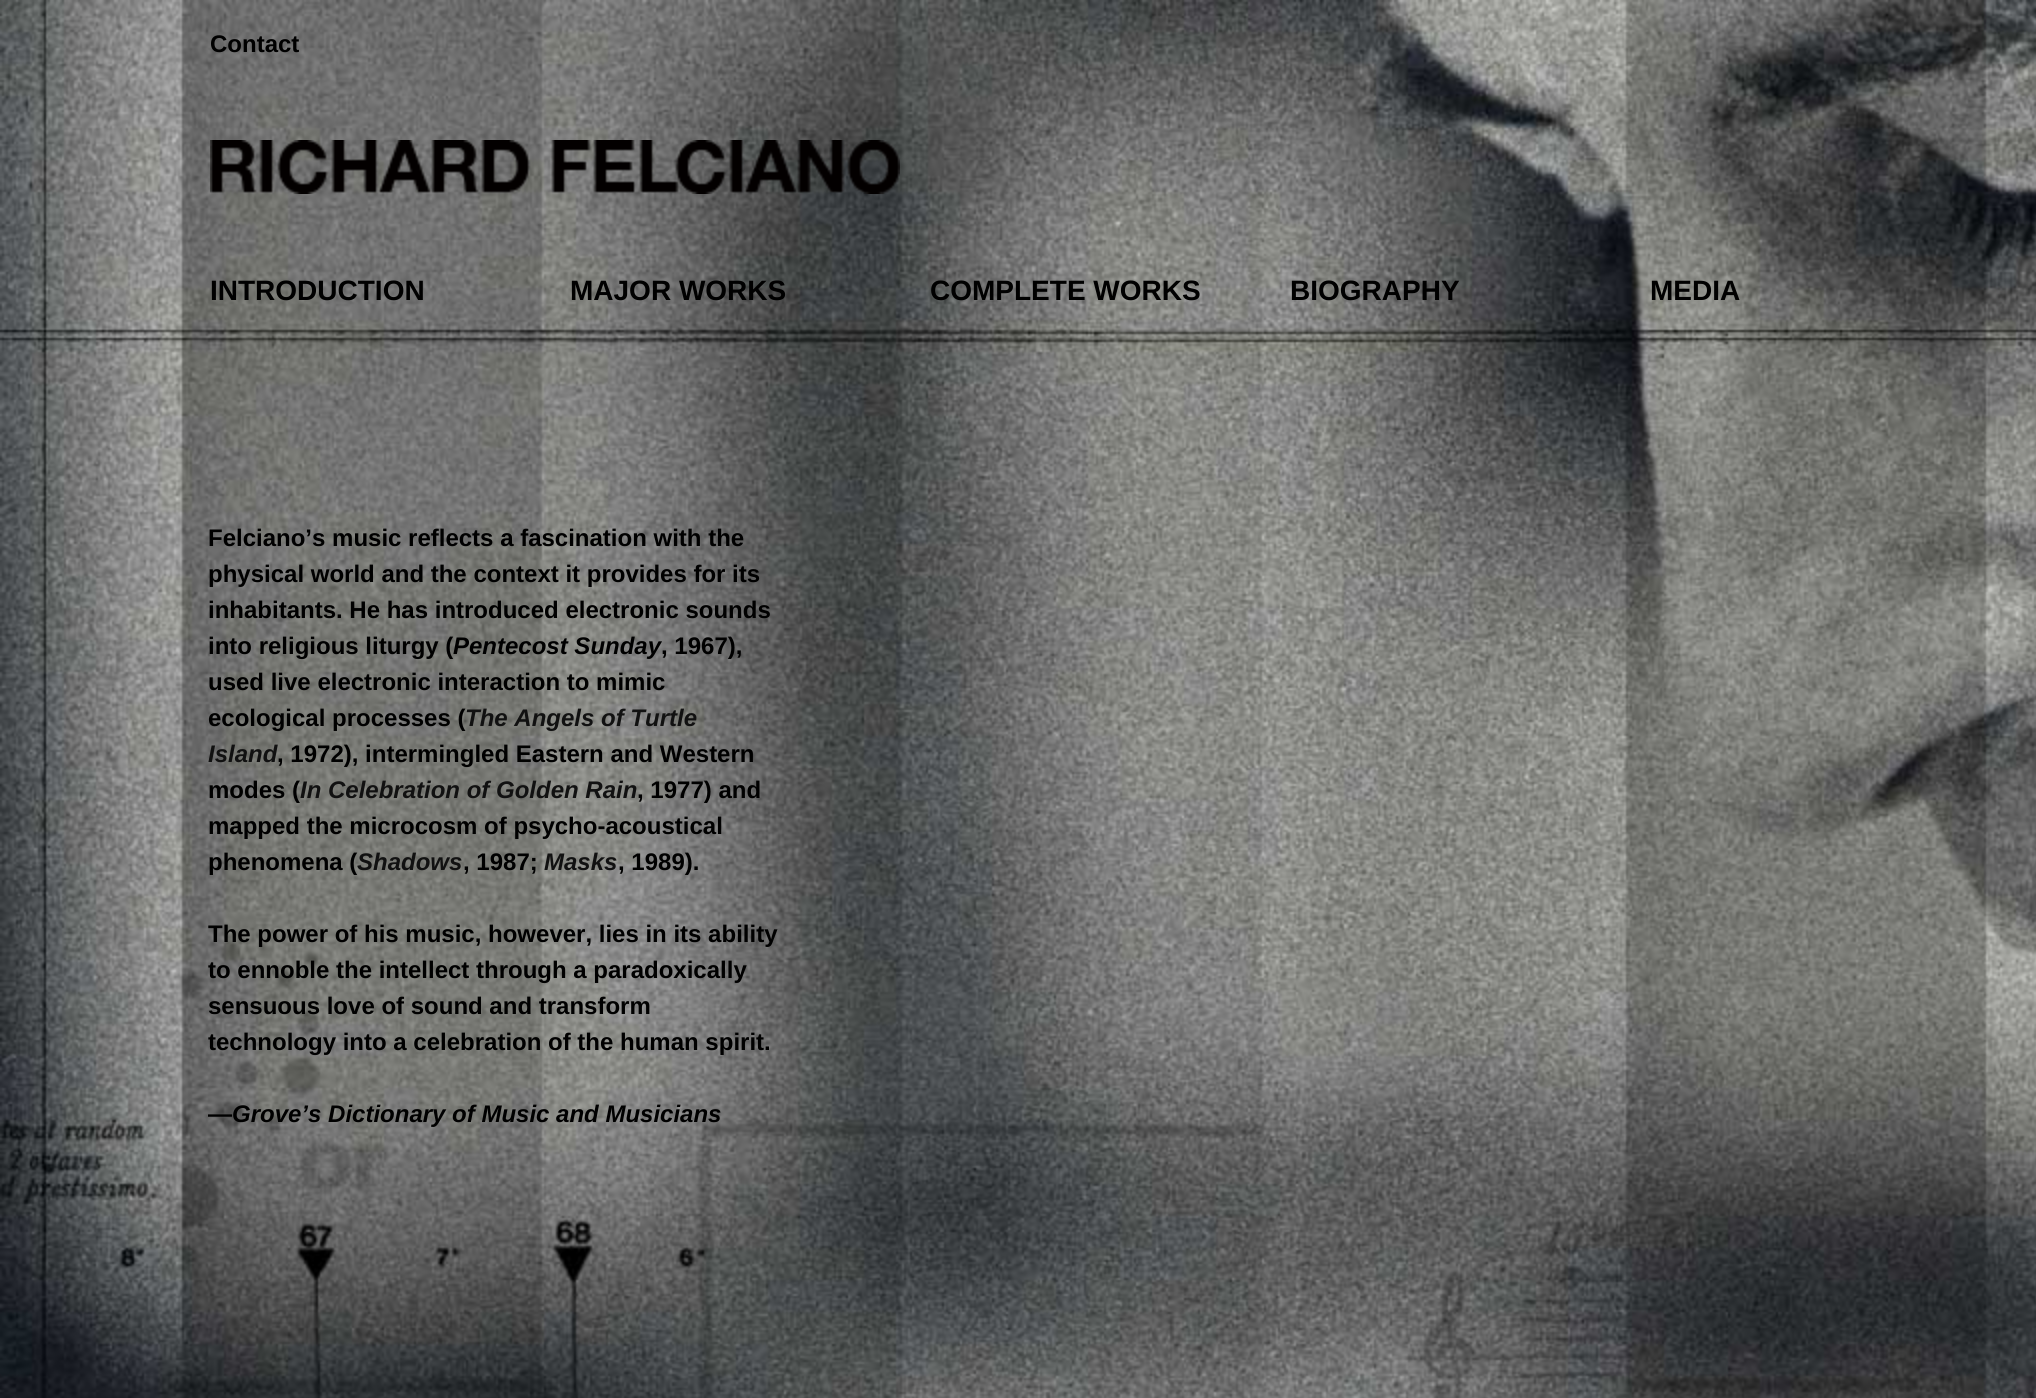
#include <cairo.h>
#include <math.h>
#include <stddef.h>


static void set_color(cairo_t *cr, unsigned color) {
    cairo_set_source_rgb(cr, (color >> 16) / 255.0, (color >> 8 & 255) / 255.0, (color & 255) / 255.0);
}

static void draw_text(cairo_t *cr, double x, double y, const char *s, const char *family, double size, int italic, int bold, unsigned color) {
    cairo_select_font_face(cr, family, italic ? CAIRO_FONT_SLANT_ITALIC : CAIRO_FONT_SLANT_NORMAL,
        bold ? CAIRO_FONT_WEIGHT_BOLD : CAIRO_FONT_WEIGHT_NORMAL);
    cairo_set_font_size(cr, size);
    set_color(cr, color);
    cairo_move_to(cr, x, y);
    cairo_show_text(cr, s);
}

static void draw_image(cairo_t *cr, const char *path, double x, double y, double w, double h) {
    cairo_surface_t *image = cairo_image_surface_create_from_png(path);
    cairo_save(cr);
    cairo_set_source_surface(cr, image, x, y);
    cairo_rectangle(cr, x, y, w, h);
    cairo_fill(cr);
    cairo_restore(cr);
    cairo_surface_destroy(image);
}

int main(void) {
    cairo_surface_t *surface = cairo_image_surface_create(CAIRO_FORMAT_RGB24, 2036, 1398);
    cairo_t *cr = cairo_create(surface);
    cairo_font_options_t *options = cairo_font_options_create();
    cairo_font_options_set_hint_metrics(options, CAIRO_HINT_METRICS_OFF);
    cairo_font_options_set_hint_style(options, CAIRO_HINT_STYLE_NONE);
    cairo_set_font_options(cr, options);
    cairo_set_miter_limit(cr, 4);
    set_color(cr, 0xFFFFFF);
    cairo_paint(cr);
    draw_image(cr, "assets/img1.png", 0, 0, 2036, 1398);
    draw_text(cr, 210, 52, "Contact", "Liberation Sans", 24, 0, 1, 0x000000);
    draw_image(cr, "assets/img2.png", 210, 140, 690, 54);
    draw_text(cr, 210, 300, "INTRODUCTION", "Liberation Sans", 28, 0, 1, 0x000000);
    draw_text(cr, 570, 300, "MAJOR WORKS", "Liberation Sans", 28, 0, 1, 0x000000);
    draw_text(cr, 930, 300, "COMPLETE WORKS", "Liberation Sans", 28, 0, 1, 0x000000);
    draw_text(cr, 1290, 300, "BIOGRAPHY", "Liberation Sans", 28, 0, 1, 0x000000);
    draw_text(cr, 1650, 300, "MEDIA", "Liberation Sans", 28, 0, 1, 0x000000);
    draw_text(cr, 208, 546, "Felciano’s music reflects a fascination with the", "Liberation Sans", 24, 0, 1, 0x000000);
    draw_text(cr, 208, 582, "physical world and the context it provides for its", "Liberation Sans", 24, 0, 1, 0x000000);
    draw_text(cr, 208, 618, "inhabitants. He has introduced electronic sounds", "Liberation Sans", 24, 0, 1, 0x000000);
    draw_text(cr, 208, 654, "into religious liturgy (", "Liberation Sans", 24, 0, 1, 0x000000);
    draw_text(cr, 453, 654, "Pentecost Sunday", "Liberation Sans", 24, 1, 1, 0x000000);
    draw_text(cr, 661, 654, ", 1967),", "Liberation Sans", 24, 0, 1, 0x000000);
    draw_text(cr, 208, 690, "used live electronic interaction to mimic", "Liberation Sans", 24, 0, 1, 0x000000);
    draw_text(cr, 208, 726, "ecological processes (", "Liberation Sans", 24, 0, 1, 0x000000);
    draw_text(cr, 465, 726, "The Angels of Turtle", "Liberation Sans", 24, 1, 1, 0x111111);
    draw_text(cr, 208, 762, "Island", "Liberation Sans", 24, 1, 1, 0x111111);
    draw_text(cr, 277, 762, ", 1972), intermingled Eastern and Western", "Liberation Sans", 24, 0, 1, 0x000000);
    draw_text(cr, 208, 798, "modes (", "Liberation Sans", 24, 0, 1, 0x000000);
    draw_text(cr, 300, 798, "In Celebration of Golden Rain", "Liberation Sans", 24, 1, 1, 0x111111);
    draw_text(cr, 637, 798, ", 1977) and", "Liberation Sans", 24, 0, 1, 0x000000);
    draw_text(cr, 208, 834, "mapped the microcosm of psycho-acoustical", "Liberation Sans", 24, 0, 1, 0x000000);
    draw_text(cr, 208, 870, "phenomena (", "Liberation Sans", 24, 0, 1, 0x000000);
    draw_text(cr, 357, 870, "Shadows", "Liberation Sans", 24, 1, 1, 0x111111);
    draw_text(cr, 463, 870, ", 1987;", "Liberation Sans", 24, 0, 1, 0x000000);
    draw_text(cr, 544, 870, "Masks", "Liberation Sans", 24, 1, 1, 0x111111);
    draw_text(cr, 618, 870, ", 1989).", "Liberation Sans", 24, 0, 1, 0x000000);
    draw_text(cr, 208, 942, "The power of his music, however, lies in its ability", "Liberation Sans", 24, 0, 1, 0x000000);
    draw_text(cr, 208, 978, "to ennoble the intellect through a paradoxically", "Liberation Sans", 24, 0, 1, 0x000000);
    draw_text(cr, 208, 1014, "sensuous love of sound and transform", "Liberation Sans", 24, 0, 1, 0x000000);
    draw_text(cr, 208, 1050, "technology into a celebration of the human spirit.", "Liberation Sans", 24, 0, 1, 0x000000);
    draw_text(cr, 208, 1122, "—", "Liberation Sans", 24, 0, 1, 0x000000);
    draw_text(cr, 232, 1122, "Grove’s Dictionary of Music and Musicians", "Liberation Sans", 24, 1, 1, 0x000000);
    cairo_surface_write_to_png(surface, "output.png");
    cairo_font_options_destroy(options);
    cairo_destroy(cr);
    cairo_surface_destroy(surface);
    return 0;
}
